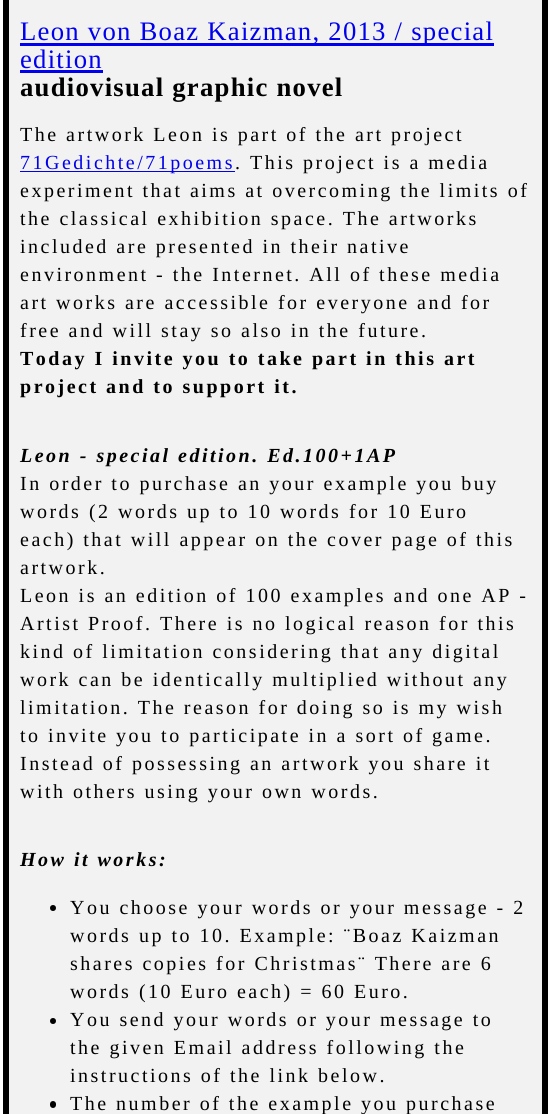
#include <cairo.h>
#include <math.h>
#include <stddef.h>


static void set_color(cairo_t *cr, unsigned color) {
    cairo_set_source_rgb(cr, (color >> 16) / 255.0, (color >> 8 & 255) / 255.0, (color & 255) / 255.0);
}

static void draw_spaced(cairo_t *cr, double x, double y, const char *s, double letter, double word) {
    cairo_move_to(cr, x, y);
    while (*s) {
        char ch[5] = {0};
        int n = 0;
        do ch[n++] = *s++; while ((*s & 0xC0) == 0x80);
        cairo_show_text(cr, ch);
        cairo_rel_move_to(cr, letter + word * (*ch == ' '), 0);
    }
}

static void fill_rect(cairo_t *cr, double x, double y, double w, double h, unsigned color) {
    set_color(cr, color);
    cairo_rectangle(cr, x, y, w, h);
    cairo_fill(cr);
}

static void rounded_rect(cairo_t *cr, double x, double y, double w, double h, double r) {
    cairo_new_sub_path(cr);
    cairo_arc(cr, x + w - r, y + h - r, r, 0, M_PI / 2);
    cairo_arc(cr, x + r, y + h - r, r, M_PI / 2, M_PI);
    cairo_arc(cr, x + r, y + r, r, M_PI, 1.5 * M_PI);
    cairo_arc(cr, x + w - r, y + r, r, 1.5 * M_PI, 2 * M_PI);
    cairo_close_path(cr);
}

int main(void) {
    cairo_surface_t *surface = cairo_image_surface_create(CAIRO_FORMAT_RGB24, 549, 1114);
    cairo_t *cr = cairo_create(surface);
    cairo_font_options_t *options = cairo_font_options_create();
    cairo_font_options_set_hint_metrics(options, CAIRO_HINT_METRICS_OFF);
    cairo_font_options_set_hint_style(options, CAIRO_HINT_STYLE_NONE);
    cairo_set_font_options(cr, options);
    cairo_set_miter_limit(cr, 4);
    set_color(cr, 0xFFFFFF);
    cairo_paint(cr);
    set_color(cr, 0xF2F2F2);
    cairo_rectangle(cr, 6, -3, 539, 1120);
    cairo_fill_preserve(cr);
    set_color(cr, 0x000000);
    cairo_set_line_width(cr, 6);
    cairo_stroke(cr);
    fill_rect(cr, 20, 43, 474, 3, 0x0000EE);
    cairo_select_font_face(cr, "Liberation Serif", CAIRO_FONT_SLANT_NORMAL, CAIRO_FONT_WEIGHT_NORMAL);
    cairo_set_font_size(cr, 26.7);
    draw_spaced(cr, 20, 40, "Leon von Boaz Kaizman, 2013 / special", 1.25, 0);
    draw_spaced(cr, 20, 68, "edition", 1.25, 0);
    fill_rect(cr, 20, 70, 83, 3, 0x0000EE);
    cairo_select_font_face(cr, "Liberation Serif", CAIRO_FONT_SLANT_NORMAL, CAIRO_FONT_WEIGHT_BOLD);
    set_color(cr, 0x000000);
    draw_spaced(cr, 20, 96, "audiovisual graphic novel", 1.25, 0);
    cairo_select_font_face(cr, "Liberation Serif", CAIRO_FONT_SLANT_NORMAL, CAIRO_FONT_WEIGHT_NORMAL);
    cairo_set_font_size(cr, 20);
    draw_spaced(cr, 20, 141, "The artwork Leon is part of the art project", 2.5, 0);
    fill_rect(cr, 20, 171, 215, 1, 0x0000EE);
    draw_spaced(cr, 20, 169, "71Gedichte/71poems", 2.5, 0);
    set_color(cr, 0x000000);
    draw_spaced(cr, 235, 169, ". This project is a media", 2.5, 0);
    draw_spaced(cr, 20, 197, "experiment that aims at overcoming the limits of", 2.5, 0);
    draw_spaced(cr, 20, 225, "the classical exhibition space. The artworks", 2.5, 0);
    draw_spaced(cr, 20, 253, "included are presented in their native", 2.5, 0);
    draw_spaced(cr, 20, 281, "environment - the Internet. All of these media", 2.5, 0);
    draw_spaced(cr, 20, 309, "art works are accessible for everyone and for", 2.5, 0);
    draw_spaced(cr, 20, 337, "free and will stay so also in the future.", 2.5, 0);
    cairo_select_font_face(cr, "Liberation Serif", CAIRO_FONT_SLANT_NORMAL, CAIRO_FONT_WEIGHT_BOLD);
    draw_spaced(cr, 20, 365, "Today I invite you to take part in this art", 2.5, 0);
    draw_spaced(cr, 20, 393, "project and to support it.", 2.5, 0);
    cairo_select_font_face(cr, "Liberation Serif", CAIRO_FONT_SLANT_ITALIC, CAIRO_FONT_WEIGHT_BOLD);
    draw_spaced(cr, 20, 462, "Leon - special edition. Ed.100+1AP", 2.5, 0);
    cairo_select_font_face(cr, "Liberation Serif", CAIRO_FONT_SLANT_NORMAL, CAIRO_FONT_WEIGHT_NORMAL);
    draw_spaced(cr, 20, 490, "In order to purchase an your example you buy", 2.5, 0);
    draw_spaced(cr, 20, 518, "words (2 words up to 10 words for 10 Euro", 2.5, 0);
    draw_spaced(cr, 20, 546, "each) that will appear on the cover page of this", 2.5, 0);
    draw_spaced(cr, 20, 574, "artwork.", 2.5, 0);
    draw_spaced(cr, 20, 602, "Leon is an edition of 100 examples and one AP -", 2.5, 0);
    draw_spaced(cr, 20, 630, "Artist Proof. There is no logical reason for this", 2.5, 0);
    draw_spaced(cr, 20, 658, "kind of limitation considering that any digital", 2.5, 0);
    draw_spaced(cr, 20, 686, "work can be identically multiplied without any", 2.5, 0);
    draw_spaced(cr, 20, 714, "limitation. The reason for doing so is my wish", 2.5, 0);
    draw_spaced(cr, 20, 742, "to invite you to participate in a sort of game.", 2.5, 0);
    draw_spaced(cr, 20, 770, "Instead of possessing an artwork you share it", 2.5, 0);
    draw_spaced(cr, 20, 798, "with others using your own words.", 2.5, 0);
    cairo_select_font_face(cr, "Liberation Serif", CAIRO_FONT_SLANT_ITALIC, CAIRO_FONT_WEIGHT_BOLD);
    draw_spaced(cr, 20, 866, "How it works:", 2.5, 0);
    cairo_new_path(cr);
    cairo_arc(cr, 53, 908, 3, 0, 2 * M_PI);
    cairo_fill(cr);
    cairo_select_font_face(cr, "Liberation Serif", CAIRO_FONT_SLANT_NORMAL, CAIRO_FONT_WEIGHT_NORMAL);
    draw_spaced(cr, 70, 914, "You choose your words or your message - 2", 2.5, 0);
    draw_spaced(cr, 70, 942, "words up to 10. Example: ¨Boaz Kaizman", 2.5, 0);
    draw_spaced(cr, 70, 970, "shares copies for Christmas¨ There are 6", 2.5, 0);
    draw_spaced(cr, 70, 998, "words (10 Euro each) = 60 Euro.", 2.5, 0);
    cairo_new_path(cr);
    cairo_arc(cr, 53, 1021, 3, 0, 2 * M_PI);
    cairo_fill(cr);
    draw_spaced(cr, 70, 1026, "You send your words or your message to", 2.5, 0);
    draw_spaced(cr, 70, 1054, "the given Email address following the", 2.5, 0);
    draw_spaced(cr, 70, 1082, "instructions of the link below.", 2.5, 0);
    rounded_rect(cr, 50, 1101, 6, 7, 3);
    cairo_fill(cr);
    draw_spaced(cr, 70, 1110, "The number of the example you purchase", 2.5, 0);
    cairo_surface_write_to_png(surface, "output.png");
    cairo_font_options_destroy(options);
    cairo_destroy(cr);
    cairo_surface_destroy(surface);
    return 0;
}
